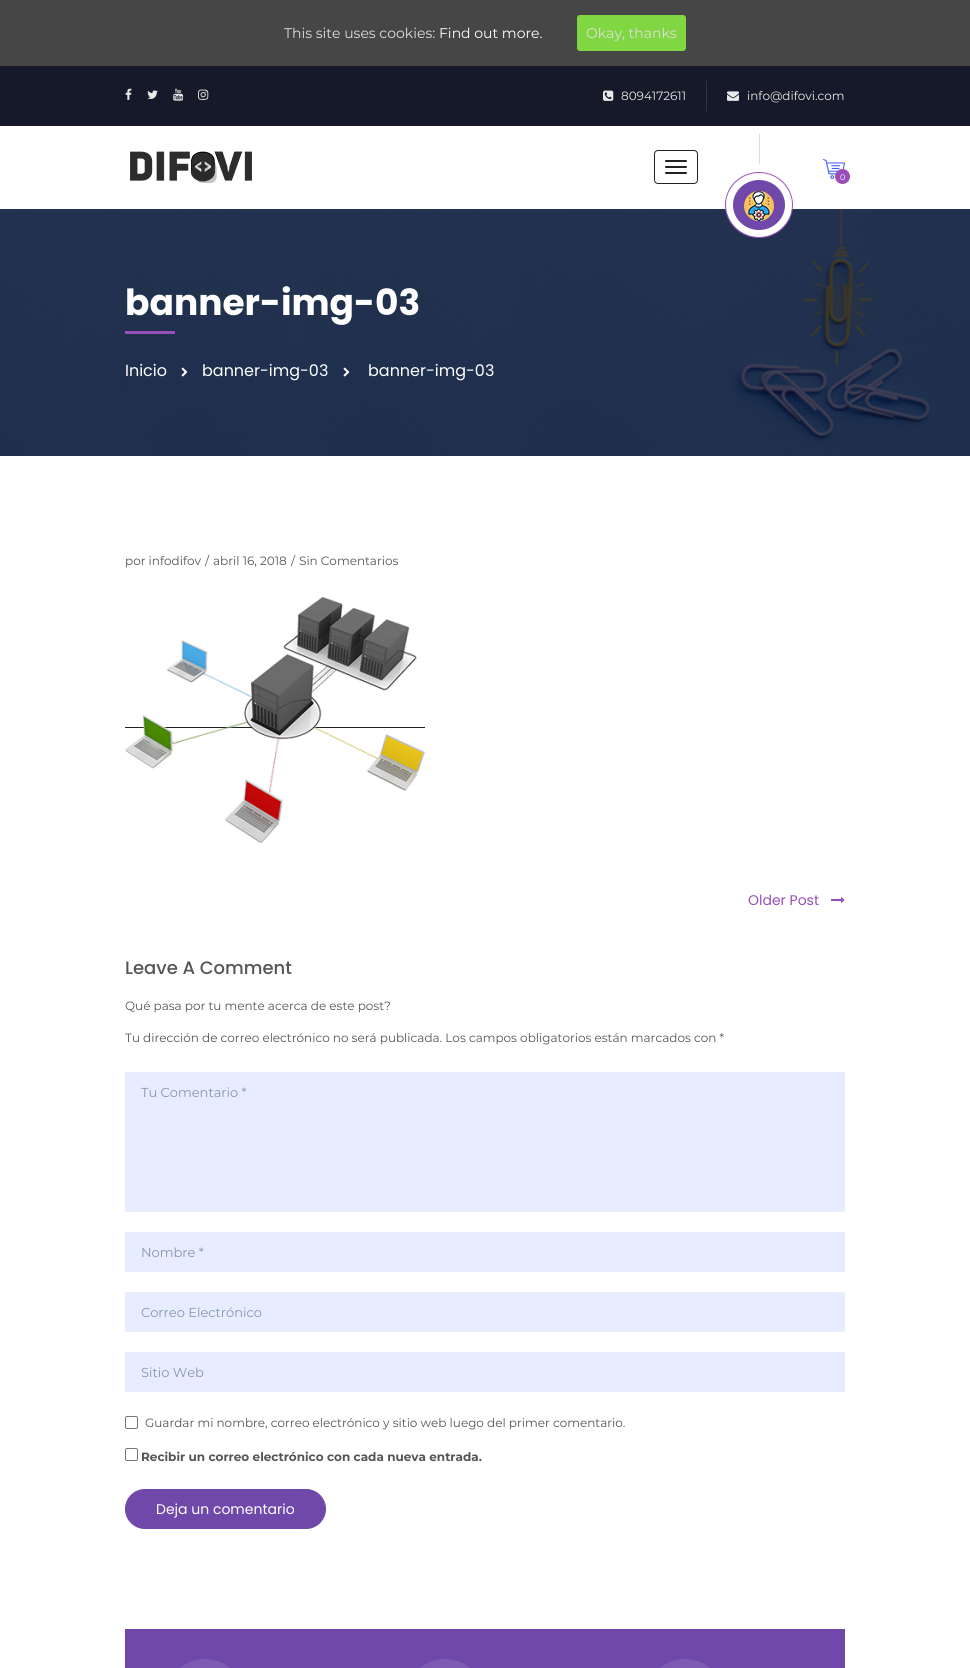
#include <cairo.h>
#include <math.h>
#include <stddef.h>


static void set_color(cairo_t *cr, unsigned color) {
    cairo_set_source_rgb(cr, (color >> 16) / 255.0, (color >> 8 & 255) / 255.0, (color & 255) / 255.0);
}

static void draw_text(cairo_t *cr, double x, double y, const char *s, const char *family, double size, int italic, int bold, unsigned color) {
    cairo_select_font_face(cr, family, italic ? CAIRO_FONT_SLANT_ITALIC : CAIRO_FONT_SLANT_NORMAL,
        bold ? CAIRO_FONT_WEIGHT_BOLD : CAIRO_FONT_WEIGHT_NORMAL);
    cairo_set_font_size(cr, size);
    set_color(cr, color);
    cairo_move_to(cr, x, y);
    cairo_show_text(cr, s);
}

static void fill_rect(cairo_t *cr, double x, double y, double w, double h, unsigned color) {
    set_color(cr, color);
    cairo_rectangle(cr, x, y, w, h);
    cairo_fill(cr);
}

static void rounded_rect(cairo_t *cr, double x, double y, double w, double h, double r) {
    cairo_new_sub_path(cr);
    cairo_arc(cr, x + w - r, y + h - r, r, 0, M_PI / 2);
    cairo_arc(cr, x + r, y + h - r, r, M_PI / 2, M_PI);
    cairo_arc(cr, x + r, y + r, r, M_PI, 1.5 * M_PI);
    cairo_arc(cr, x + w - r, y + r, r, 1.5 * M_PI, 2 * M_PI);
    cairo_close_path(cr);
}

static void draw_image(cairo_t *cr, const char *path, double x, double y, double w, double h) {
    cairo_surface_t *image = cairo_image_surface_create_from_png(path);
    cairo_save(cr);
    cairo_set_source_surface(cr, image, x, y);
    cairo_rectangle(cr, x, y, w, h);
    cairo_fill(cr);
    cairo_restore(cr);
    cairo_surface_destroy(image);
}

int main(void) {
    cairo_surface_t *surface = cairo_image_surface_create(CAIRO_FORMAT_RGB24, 970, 1668);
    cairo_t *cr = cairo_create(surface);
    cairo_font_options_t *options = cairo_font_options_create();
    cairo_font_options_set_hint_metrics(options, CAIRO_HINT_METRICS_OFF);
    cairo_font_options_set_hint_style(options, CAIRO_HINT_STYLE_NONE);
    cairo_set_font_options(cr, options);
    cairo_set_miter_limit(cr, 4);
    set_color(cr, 0xFFFFFF);
    cairo_paint(cr);
    fill_rect(cr, 0, 0, 970, 66, 0x464646);
    draw_text(cr, 284, 38, "This site uses cookies:", "Montserrat", 14, 0, 0, 0xDDDDDD);
    draw_text(cr, 439, 38, "Find out more.", "Montserrat", 14, 0, 0, 0xFFFFFF);
    set_color(cr, 0x81D742);
    rounded_rect(cr, 577, 15, 109, 36, 3);
    cairo_fill(cr);
    draw_text(cr, 586, 38, "Okay, thanks", "Montserrat", 14, 0, 0, 0xDDDDDD);
    fill_rect(cr, 0, 66, 970, 60, 0x161929);
    draw_image(cr, "assets/img1.png", 125, 88, 7, 12);
    draw_image(cr, "assets/img2.png", 147, 90, 11, 9);
    draw_image(cr, "assets/img3.png", 173, 88, 11, 13);
    draw_image(cr, "assets/img4.png", 198, 89, 11, 11);
    draw_image(cr, "assets/img5.png", 603, 90, 11, 11);
    draw_text(cr, 621, 100, "8094172611", "Montserrat", 12, 0, 0, 0xE9E9E9);
    fill_rect(cr, 706, 81, 1, 30, 0x333333);
    draw_image(cr, "assets/img6.png", 727, 91, 12, 10);
    draw_text(cr, 747, 100, "info@difovi.com", "Montserrat", 12, 0, 0, 0xE9E9E9);
    draw_image(cr, "assets/img7.png", 130, 151, 122, 32);
    rounded_rect(cr, 654.5, 150.5, 43, 33, 3.5);
    set_color(cr, 0x222222);
    cairo_set_line_width(cr, 1);
    cairo_stroke(cr);
    rounded_rect(cr, 665, 160, 22, 2, 1);
    cairo_fill(cr);
    rounded_rect(cr, 665, 166, 22, 2, 1);
    cairo_fill(cr);
    rounded_rect(cr, 665, 172, 22, 2, 1);
    cairo_fill(cr);
    fill_rect(cr, 759, 134, 1, 30, 0xDCDCDC);
    draw_image(cr, "assets/img10.png", 0, 209, 970, 247);
    cairo_new_path(cr);
    cairo_move_to(cr, 759, 172.5);
    cairo_curve_to(cr, 777.5, 172.5, 792.5, 187, 792.5, 205);
    cairo_curve_to(cr, 792.5, 223, 777.5, 237.5, 759, 237.5);
    cairo_curve_to(cr, 740.5, 237.5, 725.5, 223, 725.5, 205);
    cairo_curve_to(cr, 725.5, 187, 740.5, 172.5, 759, 172.5);
    cairo_close_path(cr);
    set_color(cr, 0x984FB9);
    cairo_stroke(cr);
    set_color(cr, 0x6F48AA);
    cairo_new_path(cr);
    cairo_move_to(cr, 759, 173);
    cairo_curve_to(cr, 777, 173, 792, 187.5, 792, 205);
    cairo_curve_to(cr, 792, 222.5, 777, 237, 759, 237);
    cairo_curve_to(cr, 741, 237, 726, 222.5, 726, 205);
    cairo_curve_to(cr, 726, 187.5, 741, 173, 759, 173);
    cairo_close_path(cr);
    cairo_fill(cr);
    cairo_save(cr);
    cairo_new_path(cr);
    cairo_move_to(cr, 759, 173);
    cairo_curve_to(cr, 777, 173, 792, 187.5, 792, 205);
    cairo_curve_to(cr, 792, 222.5, 777, 237, 759, 237);
    cairo_curve_to(cr, 741, 237, 726, 222.5, 726, 205);
    cairo_curve_to(cr, 726, 187.5, 741, 173, 759, 173);
    cairo_close_path(cr);
    cairo_clip(cr);
    cairo_new_path(cr);
    cairo_move_to(cr, 759, 176.5);
    cairo_curve_to(cr, 775.5, 176.5, 788.5, 189.5, 788.5, 205);
    cairo_curve_to(cr, 788.5, 220.5, 775.5, 233.5, 759, 233.5);
    cairo_curve_to(cr, 742.5, 233.5, 729.5, 220.5, 729.5, 205);
    cairo_curve_to(cr, 729.5, 189.5, 742.5, 176.5, 759, 176.5);
    cairo_close_path(cr);
    set_color(cr, 0xFFFFFF);
    cairo_set_line_width(cr, 7);
    cairo_stroke(cr);
    cairo_restore(cr);
    draw_image(cr, "assets/img8.png", 744, 191, 30, 30);
    draw_image(cr, "assets/img9.png", 823, 159, 22, 20);
    set_color(cr, 0x984FB9);
    cairo_arc(cr, 842.5, 176.5, 7.5, 0, 2 * M_PI);
    cairo_fill(cr);
    draw_text(cr, 840, 180, "0", "Montserrat", 8, 0, 0, 0xFFFFFF);
    draw_text(cr, 125, 315, "banner-img-03", "Poppins", 36, 0, 1, 0xFFFFFF);
    fill_rect(cr, 125, 331, 50, 3, 0x984FB9);
    draw_text(cr, 125, 376, "Inicio", "Poppins", 16, 0, 0, 0xFFFFFF);
    draw_image(cr, "assets/img11.png", 181, 367, 7, 10);
    draw_text(cr, 202, 376, "banner-img-03", "Poppins", 16, 0, 0, 0xFFFFFF);
    draw_image(cr, "assets/img12.png", 343, 367, 7, 10);
    draw_text(cr, 368, 376, "banner-img-03", "Poppins", 16, 0, 0, 0xFFFFFF);
    draw_text(cr, 125, 565, "por infodifov", "Montserrat", 12, 0, 0, 0x555555);
    draw_text(cr, 205, 565, "/", "Montserrat", 12, 0, 0, 0x555555);
    draw_text(cr, 213, 565, "abril 16, 2018", "Montserrat", 12, 0, 0, 0x555555);
    draw_text(cr, 291, 565, "/", "Montserrat", 12, 0, 0, 0x555555);
    draw_text(cr, 299, 565, "Sin Comentarios", "Montserrat", 12, 0, 0, 0x555555);
    fill_rect(cr, 125, 727, 300, 1, 0x222222);
    draw_image(cr, "assets/img13.png", 125, 597, 300, 246);
    draw_text(cr, 748, 905, "Older Post", "Poppins", 14, 0, 0, 0x984FB9);
    draw_image(cr, "assets/img14.png", 831, 897, 14, 6);
    draw_text(cr, 125, 974, "Leave A Comment", "Poppins Medium", 18, 0, 0, 0x555555);
    draw_text(cr, 125, 1010, "Qué pasa por tu mente acerca de este post?", "Montserrat", 12, 0, 0, 0x555555);
    draw_text(cr, 125, 1042, "Tu dirección de correo electrónico no será publicada. Los campos obligatorios están marcados con *", "Montserrat", 12, 0, 0, 0x555555);
    fill_rect(cr, 125, 1072, 720, 140, 0xE8ECFF);
    draw_text(cr, 141, 1097, "Tu Comentario *", "Montserrat", 13, 0, 0, 0x8399AB);
    fill_rect(cr, 125, 1232, 720, 40, 0xE8ECFF);
    draw_text(cr, 141, 1257, "Nombre *", "Montserrat", 13, 0, 0, 0x8399AB);
    fill_rect(cr, 125, 1292, 720, 40, 0xE8ECFF);
    draw_text(cr, 141, 1317, "Correo Electrónico", "Montserrat", 13, 0, 0, 0x8399AB);
    fill_rect(cr, 125, 1352, 720, 40, 0xE8ECFF);
    draw_text(cr, 141, 1377, "Sitio Web", "Montserrat", 13, 0, 0, 0x8399AB);
    rounded_rect(cr, 125.5, 1416.5, 12, 12, 1.5);
    set_color(cr, 0x767676);
    cairo_stroke(cr);
    draw_text(cr, 145, 1427, "Guardar mi nombre, correo electrónico y sitio web luego del primer comentario.", "Montserrat", 12, 0, 0, 0x555555);
    rounded_rect(cr, 125.5, 1448.5, 12, 12, 1.5);
    set_color(cr, 0x767676);
    cairo_stroke(cr);
    draw_text(cr, 141, 1461, "Recibir un correo electrónico con cada nueva entrada.", "Montserrat", 12, 0, 1, 0x555555);
    set_color(cr, 0x6F48AA);
    rounded_rect(cr, 125.5, 1489.5, 200, 39, 19.5);
    cairo_fill_preserve(cr);
    cairo_stroke(cr);
    draw_text(cr, 156, 1514, "Deja un comentario", "Poppins", 14, 0, 0, 0xFFFFFF);
    fill_rect(cr, 125, 1629, 720, 39, 0x6F48AA);
    set_color(cr, 0x7D5AB3);
    cairo_new_path(cr);
    cairo_move_to(cr, 205, 1659);
    cairo_curve_to(cr, 227, 1659, 245, 1677.5, 245, 1700);
    cairo_curve_to(cr, 245, 1722.5, 227, 1741, 205, 1741);
    cairo_curve_to(cr, 183, 1741, 165, 1722.5, 165, 1700);
    cairo_curve_to(cr, 165, 1677.5, 183, 1659, 205, 1659);
    cairo_close_path(cr);
    cairo_fill(cr);
    cairo_new_path(cr);
    cairo_move_to(cr, 445, 1659);
    cairo_curve_to(cr, 467, 1659, 485, 1677.5, 485, 1700);
    cairo_curve_to(cr, 485, 1722.5, 467, 1741, 445, 1741);
    cairo_curve_to(cr, 423, 1741, 405, 1722.5, 405, 1700);
    cairo_curve_to(cr, 405, 1677.5, 423, 1659, 445, 1659);
    cairo_close_path(cr);
    cairo_fill(cr);
    cairo_new_path(cr);
    cairo_move_to(cr, 685, 1659);
    cairo_curve_to(cr, 707, 1659, 725, 1677.5, 725, 1700);
    cairo_curve_to(cr, 725, 1722.5, 707, 1741, 685, 1741);
    cairo_curve_to(cr, 663, 1741, 645, 1722.5, 645, 1700);
    cairo_curve_to(cr, 645, 1677.5, 663, 1659, 685, 1659);
    cairo_close_path(cr);
    cairo_fill(cr);
    cairo_surface_write_to_png(surface, "output.png");
    cairo_font_options_destroy(options);
    cairo_destroy(cr);
    cairo_surface_destroy(surface);
    return 0;
}
